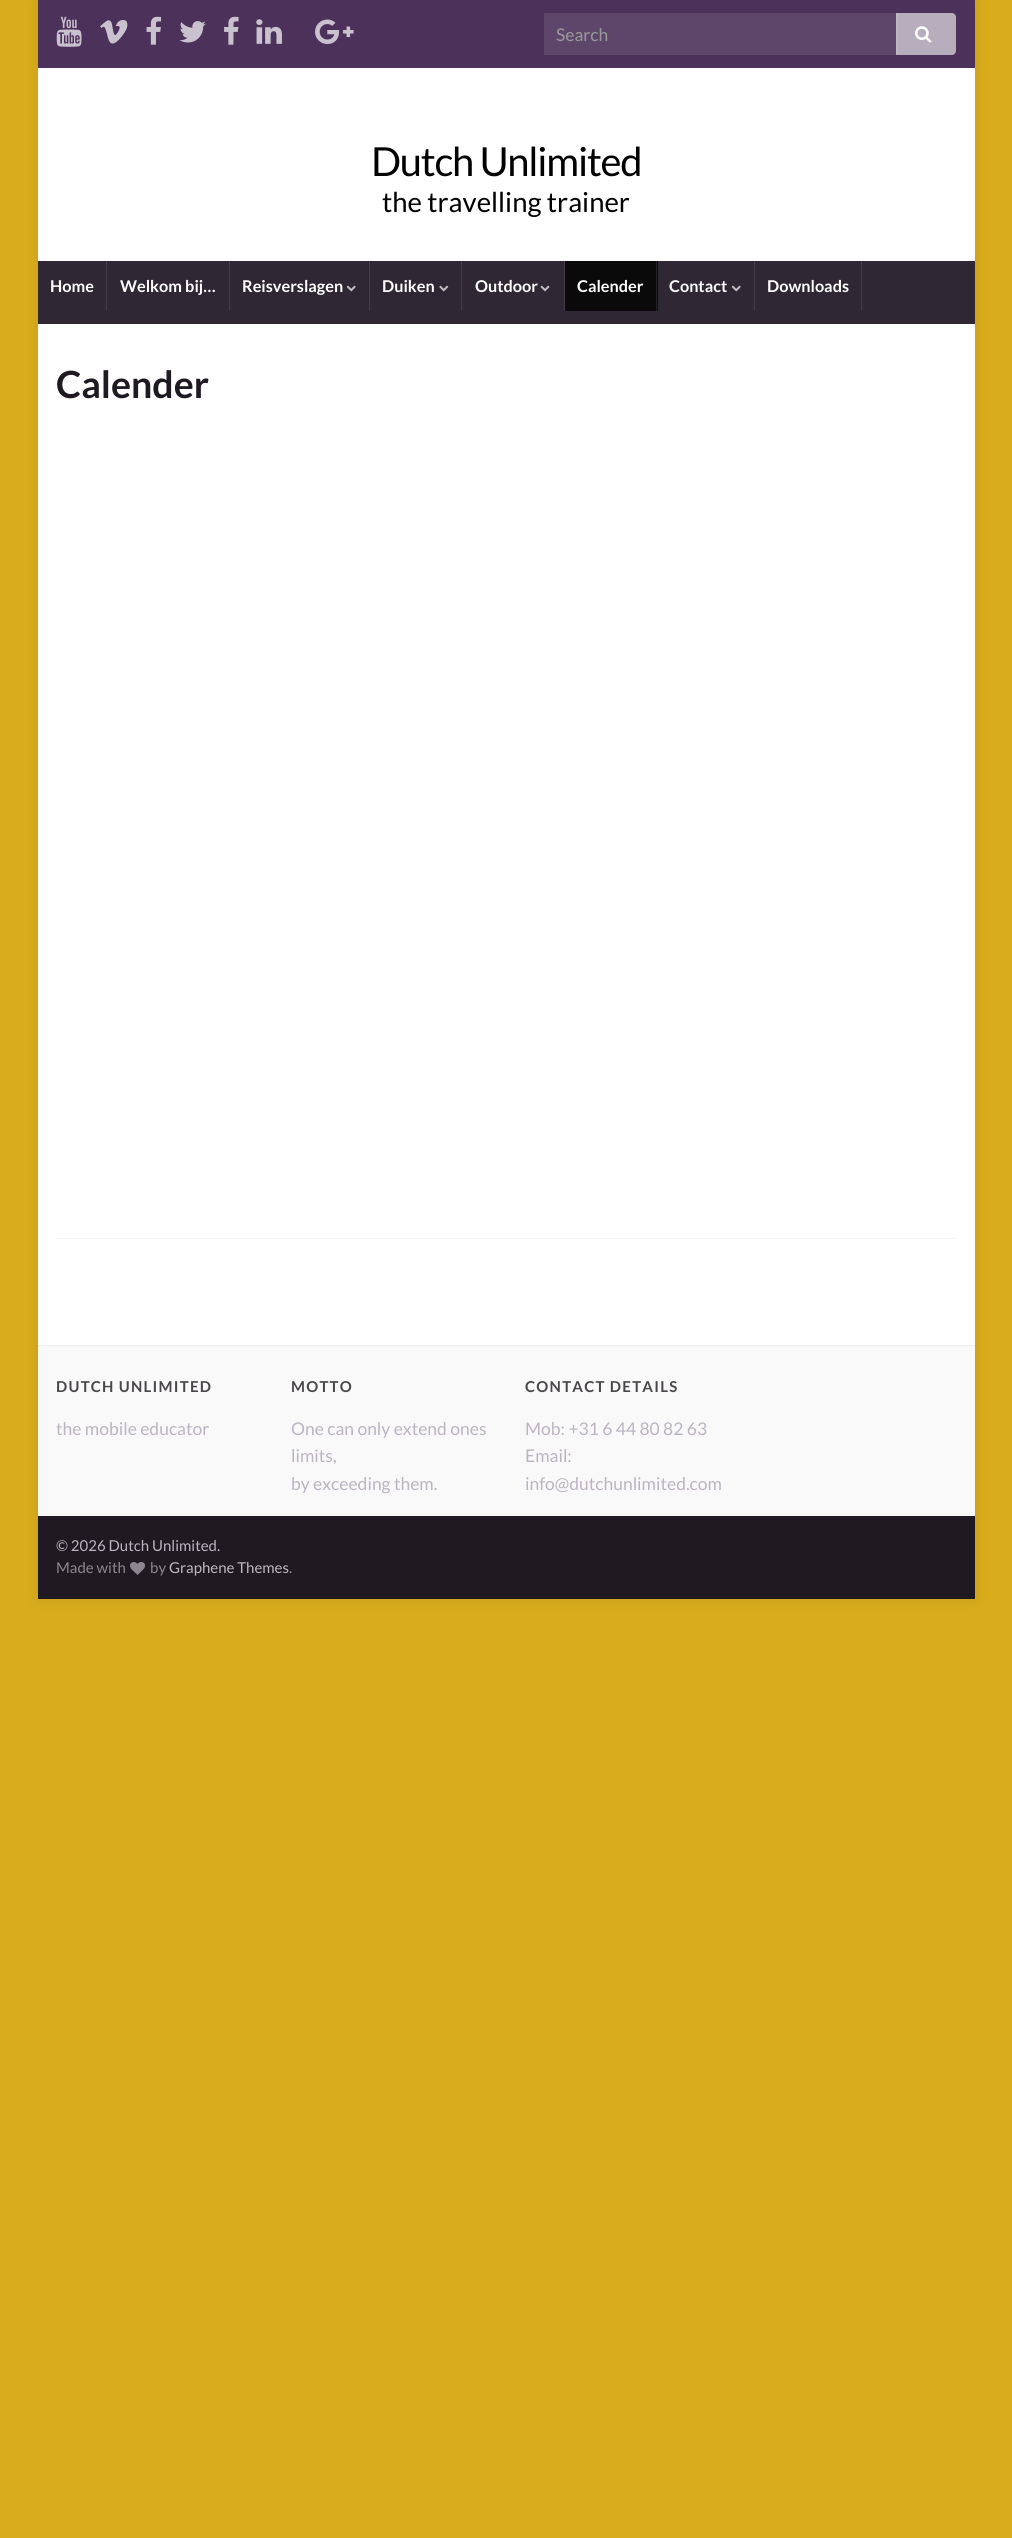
#include <cairo.h>
#include <math.h>
#include <stddef.h>


static void set_color(cairo_t *cr, unsigned color) {
    cairo_set_source_rgb(cr, (color >> 16) / 255.0, (color >> 8 & 255) / 255.0, (color & 255) / 255.0);
}

static void draw_text(cairo_t *cr, double x, double y, const char *s, const char *family, double size, int italic, int bold, unsigned color) {
    cairo_select_font_face(cr, family, italic ? CAIRO_FONT_SLANT_ITALIC : CAIRO_FONT_SLANT_NORMAL,
        bold ? CAIRO_FONT_WEIGHT_BOLD : CAIRO_FONT_WEIGHT_NORMAL);
    cairo_set_font_size(cr, size);
    set_color(cr, color);
    cairo_move_to(cr, x, y);
    cairo_show_text(cr, s);
}

static void draw_spaced(cairo_t *cr, double x, double y, const char *s, double letter, double word) {
    cairo_move_to(cr, x, y);
    while (*s) {
        char ch[5] = {0};
        int n = 0;
        do ch[n++] = *s++; while ((*s & 0xC0) == 0x80);
        cairo_show_text(cr, ch);
        cairo_rel_move_to(cr, letter + word * (*ch == ' '), 0);
    }
}

static void fill_rect(cairo_t *cr, double x, double y, double w, double h, unsigned color) {
    set_color(cr, color);
    cairo_rectangle(cr, x, y, w, h);
    cairo_fill(cr);
}

static void rounded_rect(cairo_t *cr, double x, double y, double w, double h, double r) {
    cairo_new_sub_path(cr);
    cairo_arc(cr, x + w - r, y + h - r, r, 0, M_PI / 2);
    cairo_arc(cr, x + r, y + h - r, r, M_PI / 2, M_PI);
    cairo_arc(cr, x + r, y + r, r, M_PI, 1.5 * M_PI);
    cairo_arc(cr, x + w - r, y + r, r, 1.5 * M_PI, 2 * M_PI);
    cairo_close_path(cr);
}

static void draw_shadow(cairo_t *cr, double x, double y, double w, double h, double r, double blur, double alpha) {
    cairo_push_group_with_content(cr, CAIRO_CONTENT_ALPHA);
    cairo_set_operator(cr, CAIRO_OPERATOR_SOURCE);
    for (int i = 15; i >= -15 && fmin(w, h) + blur * i / 3 > 0; i -= 2) {
        double e = blur * i / 6;
        cairo_set_source_rgba(cr, 0, 0, 0, alpha * erfc((i - 1) / 8.5) / 2);
        rounded_rect(cr, x - e, y - e, w + 2 * e, h + 2 * e, fmax(0, fmin(r + e + blur * .6, fmin(w, h) / 2 + e)));
        cairo_fill(cr);
    }
    cairo_pattern_t *soft = cairo_pop_group(cr);
    cairo_mask(cr, soft);
    cairo_pattern_destroy(soft);
}

static void draw_image(cairo_t *cr, const char *path, double x, double y, double w, double h) {
    cairo_surface_t *image = cairo_image_surface_create_from_png(path);
    cairo_save(cr);
    cairo_set_source_surface(cr, image, x, y);
    cairo_rectangle(cr, x, y, w, h);
    cairo_fill(cr);
    cairo_restore(cr);
    cairo_surface_destroy(image);
}

int main(void) {
    cairo_surface_t *surface = cairo_image_surface_create(CAIRO_FORMAT_RGB24, 1012, 2538);
    cairo_t *cr = cairo_create(surface);
    cairo_font_options_t *options = cairo_font_options_create();
    cairo_font_options_set_hint_metrics(options, CAIRO_HINT_METRICS_OFF);
    cairo_font_options_set_hint_style(options, CAIRO_HINT_STYLE_NONE);
    cairo_set_font_options(cr, options);
    cairo_set_miter_limit(cr, 4);
    set_color(cr, 0xD8AC1C);
    cairo_paint(cr);
    set_color(cr, 0x000000);
    draw_shadow(cr, 38, 0, 937, 1599, 0, 6, 0.1);
    fill_rect(cr, 38, 0, 937, 68, 0x4C315A);
    draw_image(cr, "assets/img1.png", 56, 16, 26, 31);
    draw_image(cr, "assets/img2.png", 100, 20, 28, 24);
    draw_image(cr, "assets/img3.png", 146, 16, 16, 29);
    draw_image(cr, "assets/img4.png", 179, 21, 27, 22);
    draw_image(cr, "assets/img5.png", 224, 16, 15, 29);
    draw_image(cr, "assets/img6.png", 256, 19, 26, 25);
    draw_image(cr, "assets/img7.png", 315, 19, 39, 26);
    fill_rect(cr, 544, 13, 354, 42, 0x5E466B);
    draw_text(cr, 556, 41, "Search", "Lato", 17.5, 0, 0, 0x999999);
    cairo_set_source_rgba(cr, 1, 1, 1, 0.6);
    cairo_new_path(cr);
    cairo_move_to(cr, 896, 13);
    cairo_line_to(cr, 952, 13);
    cairo_curve_to(cr, 954, 13, 956, 15, 956, 17);
    cairo_line_to(cr, 956, 51);
    cairo_curve_to(cr, 956, 53, 954, 55, 952, 55);
    cairo_line_to(cr, 896, 55);
    cairo_close_path(cr);
    cairo_fill(cr);
    draw_image(cr, "assets/img8.png", 915, 26, 17, 17);
    fill_rect(cr, 38, 68, 937, 193, 0xFFFFFF);
    fill_rect(cr, 38, 261, 937, 63, 0x2F2733);
    cairo_set_font_size(cr, 40);
    set_color(cr, 0x000000);
    draw_spaced(cr, 371, 176, "Dutch Unlimited", -1.25, 0);
    draw_text(cr, 382, 212, "the travelling trainer", "Lato", 27.5, 0, 0, 0x000000);
    fill_rect(cr, 106, 261, 1, 50, 0x443D47);
    draw_text(cr, 50, 292, "Home", "Lato", 16.25, 0, 1, 0xFFFFFF);
    fill_rect(cr, 229, 261, 1, 50, 0x443D47);
    draw_text(cr, 120, 292, "Welkom bij…", "Lato", 16.25, 0, 1, 0xFFFFFF);
    fill_rect(cr, 369, 261, 1, 50, 0x443D47);
    draw_text(cr, 242, 292, "Reisverslagen", "Lato", 16.25, 0, 1, 0xFFFFFF);
    draw_image(cr, "assets/img9.png", 346, 285, 10, 7);
    fill_rect(cr, 461, 261, 1, 50, 0x443D47);
    draw_text(cr, 382, 292, "Duiken", "Lato", 16.25, 0, 1, 0xFFFFFF);
    draw_image(cr, "assets/img10.png", 439, 285, 10, 7);
    fill_rect(cr, 564, 261, 1, 50, 0x443D47);
    draw_text(cr, 475, 292, "Outdoor", "Lato", 16.25, 0, 1, 0xFFFFFF);
    draw_image(cr, "assets/img11.png", 540, 285, 10, 7);
    fill_rect(cr, 565, 261, 93, 50, 0x0B0A0B);
    fill_rect(cr, 656, 261, 1, 50, 0x232323);
    draw_text(cr, 577, 292, "Calender", "Lato", 16.25, 0, 1, 0xFFFFFF);
    fill_rect(cr, 754, 261, 1, 50, 0x443D47);
    draw_text(cr, 669, 292, "Contact", "Lato", 16.25, 0, 1, 0xFFFFFF);
    draw_image(cr, "assets/img9.png", 731, 285, 10, 7);
    fill_rect(cr, 861, 261, 1, 50, 0x443D47);
    draw_text(cr, 767, 292, "Downloads", "Lato", 16.25, 0, 1, 0xFFFFFF);
    fill_rect(cr, 38, 324, 937, 1021, 0xFFFFFF);
    draw_text(cr, 56, 398, "Calender", "Lato", 37.5, 0, 1, 0x1F1A22);
    fill_rect(cr, 56, 1238, 900, 1, 0xF5F5F5);
    fill_rect(cr, 38, 1346, 937, 170, 0xF9F9F9);
    fill_rect(cr, 38, 1345, 937, 1, 0xEEEEEE);
    cairo_set_font_size(cr, 15);
    set_color(cr, 0x4A474B);
    draw_spaced(cr, 56, 1392, "DUTCH UNLIMITED", 1.25, 0);
    draw_text(cr, 56, 1435, "the mobile educator", "Lato", 17.5, 0, 0, 0xBCB4C1);
    cairo_select_font_face(cr, "Lato", CAIRO_FONT_SLANT_NORMAL, CAIRO_FONT_WEIGHT_BOLD);
    cairo_set_font_size(cr, 15);
    set_color(cr, 0x4A474B);
    draw_spaced(cr, 291, 1392, "MOTTO", 1.25, 0);
    draw_text(cr, 291, 1435, "One can only extend ones", "Lato", 17.5, 0, 0, 0xBCB4C1);
    draw_text(cr, 291, 1462, "limits,", "Lato", 17.5, 0, 0, 0xBCB4C1);
    draw_text(cr, 291, 1490, "by exceeding them.", "Lato", 17.5, 0, 0, 0xBCB4C1);
    cairo_select_font_face(cr, "Lato", CAIRO_FONT_SLANT_NORMAL, CAIRO_FONT_WEIGHT_BOLD);
    cairo_set_font_size(cr, 15);
    set_color(cr, 0x4A474B);
    draw_spaced(cr, 525, 1392, "CONTACT DETAILS", 1.25, 0);
    draw_text(cr, 525, 1435, "Mob: +31 6 44 80 82 63", "Lato", 17.5, 0, 0, 0xBCB4C1);
    draw_text(cr, 525, 1462, "Email:", "Lato", 17.5, 0, 0, 0xBCB4C1);
    draw_text(cr, 525, 1490, "info@dutchunlimited.com", "Lato", 17.5, 0, 0, 0xBCB4C1);
    fill_rect(cr, 38, 1516, 937, 83, 0x1F1A22);
    draw_text(cr, 56, 1551, "© 2026 Dutch Unlimited.", "Lato", 15, 0, 0, 0xBCB4C1);
    draw_text(cr, 56, 1573, "Made with", "Lato", 15, 0, 0, 0x8D8691);
    draw_image(cr, "assets/img12.png", 130, 1562, 15, 13);
    draw_text(cr, 150, 1573, "by", "Lato", 15, 0, 0, 0x8D8691);
    draw_text(cr, 169, 1573, "Graphene Themes", "Lato", 15, 0, 0, 0xBCBABD);
    draw_text(cr, 289, 1573, ".", "Lato", 15, 0, 0, 0x8D8691);
    cairo_surface_write_to_png(surface, "output.png");
    cairo_font_options_destroy(options);
    cairo_destroy(cr);
    cairo_surface_destroy(surface);
    return 0;
}
